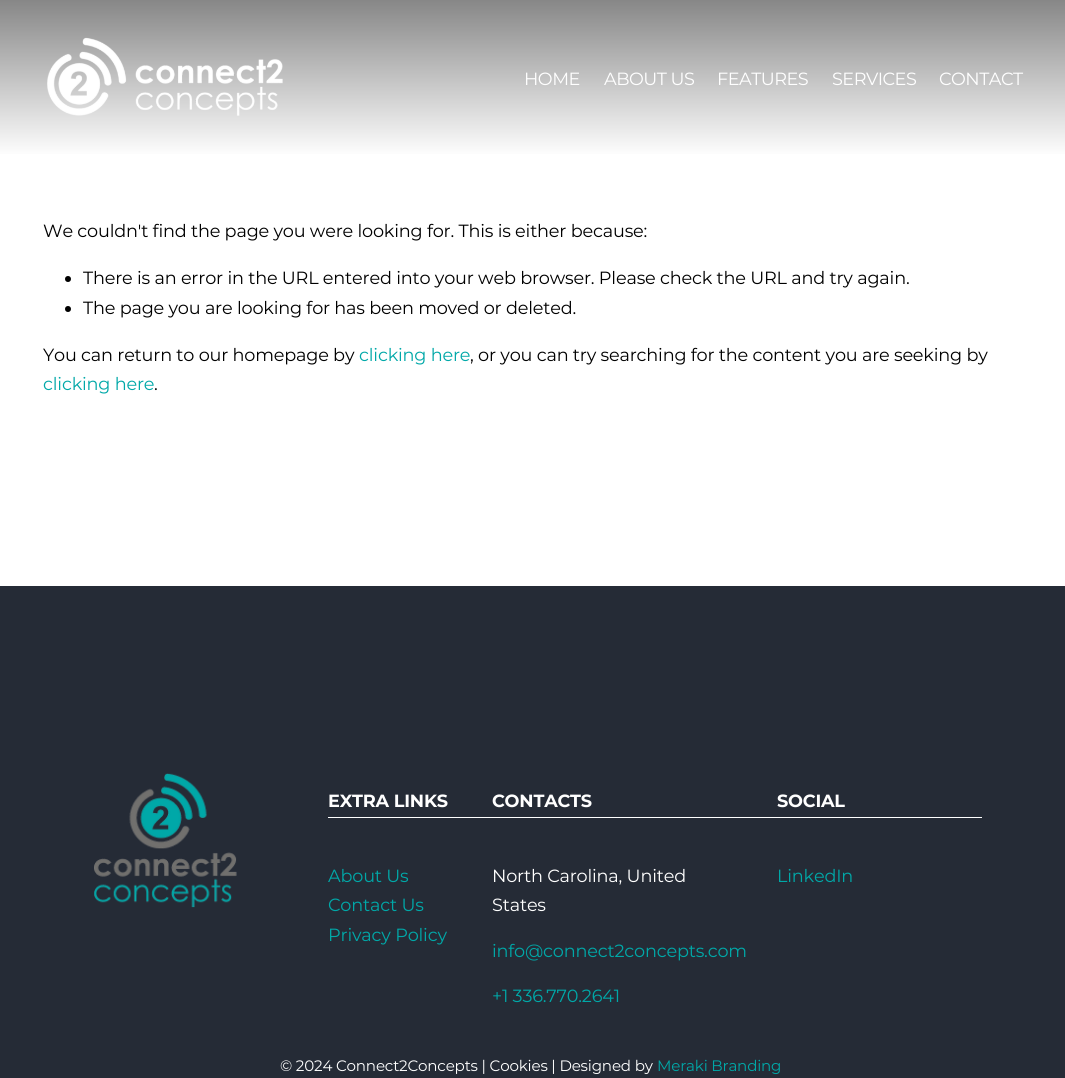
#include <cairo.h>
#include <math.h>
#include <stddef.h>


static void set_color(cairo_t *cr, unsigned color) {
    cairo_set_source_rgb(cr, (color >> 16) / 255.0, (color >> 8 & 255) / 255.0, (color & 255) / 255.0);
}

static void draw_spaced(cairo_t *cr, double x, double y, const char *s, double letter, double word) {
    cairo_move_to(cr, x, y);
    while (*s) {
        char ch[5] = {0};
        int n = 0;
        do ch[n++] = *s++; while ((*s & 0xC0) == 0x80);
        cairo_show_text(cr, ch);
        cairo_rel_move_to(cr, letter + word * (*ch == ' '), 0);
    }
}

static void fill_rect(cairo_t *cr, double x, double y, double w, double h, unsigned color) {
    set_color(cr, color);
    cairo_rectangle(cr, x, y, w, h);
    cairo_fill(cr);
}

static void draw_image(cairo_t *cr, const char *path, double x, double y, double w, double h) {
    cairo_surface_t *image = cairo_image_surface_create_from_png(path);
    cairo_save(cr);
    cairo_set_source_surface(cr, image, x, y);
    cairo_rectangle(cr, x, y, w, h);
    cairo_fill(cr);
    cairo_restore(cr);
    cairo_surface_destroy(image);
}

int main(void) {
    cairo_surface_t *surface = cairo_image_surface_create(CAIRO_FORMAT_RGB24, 1065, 1078);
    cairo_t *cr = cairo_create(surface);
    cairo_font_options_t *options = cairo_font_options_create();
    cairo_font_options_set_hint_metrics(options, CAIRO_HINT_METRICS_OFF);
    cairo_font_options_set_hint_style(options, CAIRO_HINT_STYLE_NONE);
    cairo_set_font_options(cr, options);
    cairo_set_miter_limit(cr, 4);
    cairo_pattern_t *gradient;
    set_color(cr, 0xFFFFFF);
    cairo_paint(cr);
    gradient = cairo_pattern_create_linear(533, 0, 533, 157);
    cairo_pattern_add_color_stop_rgba(gradient, 0, 0.529, 0.529, 0.529, 1);
    cairo_pattern_add_color_stop_rgba(gradient, 1, 1, 1, 1, 1);
    cairo_set_source(cr, gradient);
    cairo_pattern_destroy(gradient);
    cairo_rectangle(cr, 0, 0, 1065, 154);
    cairo_fill(cr);
    draw_image(cr, "assets/img1.png", 47, 37, 236, 79);
    cairo_select_font_face(cr, "Montserrat", CAIRO_FONT_SLANT_NORMAL, CAIRO_FONT_WEIGHT_NORMAL);
    cairo_set_font_size(cr, 17.65);
    set_color(cr, 0xFFFFFF);
    draw_spaced(cr, 524, 85, "HOME", -0.5, 0);
    draw_spaced(cr, 604, 85, "ABOUT US", -0.5, 0);
    draw_spaced(cr, 717, 85, "FEATURES", -0.5, 0);
    draw_spaced(cr, 832, 85, "SERVICES", -0.5, 0);
    draw_spaced(cr, 939, 85, "CONTACT", -0.5, 0);
    set_color(cr, 0x000000);
    draw_spaced(cr, 43, 237, "We couldn't find the page you were looking for. This is either because:", -0.18, 0);
    cairo_new_path(cr);
    cairo_arc(cr, 68, 279, 3, 0, 2 * M_PI);
    cairo_fill(cr);
    draw_spaced(cr, 83, 284, "There is an error in the URL entered into your web browser. Please check the URL and try again.", -0.18, 0);
    cairo_new_path(cr);
    cairo_arc(cr, 68, 309, 3, 0, 2 * M_PI);
    cairo_fill(cr);
    draw_spaced(cr, 83, 314, "The page you are looking for has been moved or deleted.", -0.18, 0);
    draw_spaced(cr, 43, 361, "You can return to our homepage by", -0.18, 0);
    set_color(cr, 0x00A8A8);
    draw_spaced(cr, 359, 361, "clicking here", -0.18, 0);
    set_color(cr, 0x000000);
    draw_spaced(cr, 470, 361, ", or you can try searching for the content you are seeking by", -0.18, 0);
    set_color(cr, 0x00A8A8);
    draw_spaced(cr, 43, 390, "clicking here", -0.18, 0);
    set_color(cr, 0x000000);
    draw_spaced(cr, 154, 390, ".", -0.18, 0);
    fill_rect(cr, 0, 586, 1065, 492, 0x252B36);
    draw_image(cr, "assets/img2.png", 94, 773, 143, 135);
    cairo_select_font_face(cr, "Montserrat", CAIRO_FONT_SLANT_NORMAL, CAIRO_FONT_WEIGHT_BOLD);
    set_color(cr, 0xFFFFFF);
    draw_spaced(cr, 328, 807, "EXTRA LINKS", -0.18, 0);
    cairo_select_font_face(cr, "Montserrat", CAIRO_FONT_SLANT_NORMAL, CAIRO_FONT_WEIGHT_NORMAL);
    set_color(cr, 0x00A8A8);
    draw_spaced(cr, 328, 882, "About Us", -0.18, 0);
    draw_spaced(cr, 328, 911, "Contact Us", -0.18, 0);
    draw_spaced(cr, 328, 941, "Privacy Policy", -0.18, 0);
    cairo_select_font_face(cr, "Montserrat", CAIRO_FONT_SLANT_NORMAL, CAIRO_FONT_WEIGHT_BOLD);
    set_color(cr, 0xFFFFFF);
    draw_spaced(cr, 492, 807, "CONTACTS", -0.18, 0);
    cairo_select_font_face(cr, "Montserrat", CAIRO_FONT_SLANT_NORMAL, CAIRO_FONT_WEIGHT_NORMAL);
    draw_spaced(cr, 492, 882, "North Carolina, United", -0.18, 0);
    draw_spaced(cr, 492, 911, "States", -0.18, 0);
    set_color(cr, 0x00A8A8);
    draw_spaced(cr, 492, 957, "info@connect2concepts.com", -0.18, 0);
    draw_spaced(cr, 492, 1002, "+1 336.770.2641", -0.18, 0);
    cairo_select_font_face(cr, "Montserrat", CAIRO_FONT_SLANT_NORMAL, CAIRO_FONT_WEIGHT_BOLD);
    set_color(cr, 0xFFFFFF);
    draw_spaced(cr, 777, 807, "SOCIAL", -0.18, 0);
    cairo_select_font_face(cr, "Montserrat", CAIRO_FONT_SLANT_NORMAL, CAIRO_FONT_WEIGHT_NORMAL);
    set_color(cr, 0x00A8A8);
    draw_spaced(cr, 777, 882, "LinkedIn", -0.18, 0);
    fill_rect(cr, 328, 817, 654, 1, 0xFFFFFF);
    cairo_set_font_size(cr, 15.1);
    draw_spaced(cr, 280, 1071, "© 2024 Connect2Concepts | Cookies | Designed by", -0.18, 0);
    set_color(cr, 0x00A8A8);
    draw_spaced(cr, 657, 1071, "Meraki Branding", -0.18, 0);
    cairo_surface_write_to_png(surface, "output.png");
    cairo_font_options_destroy(options);
    cairo_destroy(cr);
    cairo_surface_destroy(surface);
    return 0;
}
